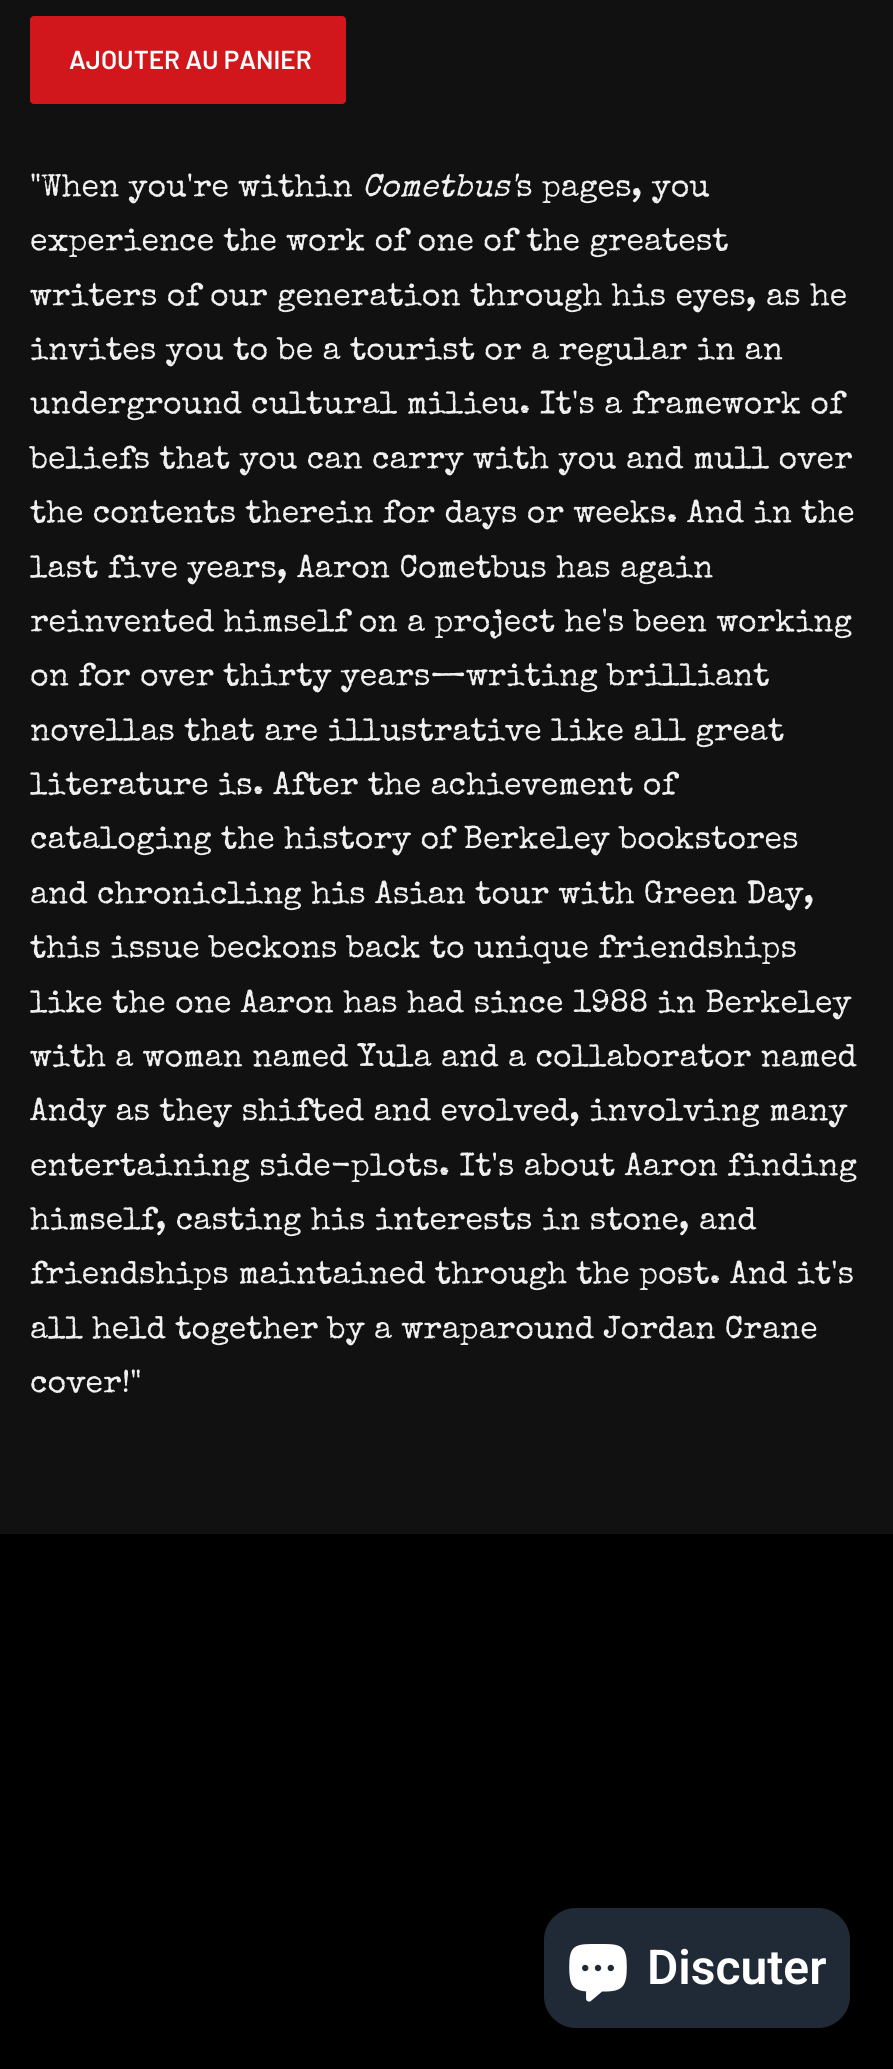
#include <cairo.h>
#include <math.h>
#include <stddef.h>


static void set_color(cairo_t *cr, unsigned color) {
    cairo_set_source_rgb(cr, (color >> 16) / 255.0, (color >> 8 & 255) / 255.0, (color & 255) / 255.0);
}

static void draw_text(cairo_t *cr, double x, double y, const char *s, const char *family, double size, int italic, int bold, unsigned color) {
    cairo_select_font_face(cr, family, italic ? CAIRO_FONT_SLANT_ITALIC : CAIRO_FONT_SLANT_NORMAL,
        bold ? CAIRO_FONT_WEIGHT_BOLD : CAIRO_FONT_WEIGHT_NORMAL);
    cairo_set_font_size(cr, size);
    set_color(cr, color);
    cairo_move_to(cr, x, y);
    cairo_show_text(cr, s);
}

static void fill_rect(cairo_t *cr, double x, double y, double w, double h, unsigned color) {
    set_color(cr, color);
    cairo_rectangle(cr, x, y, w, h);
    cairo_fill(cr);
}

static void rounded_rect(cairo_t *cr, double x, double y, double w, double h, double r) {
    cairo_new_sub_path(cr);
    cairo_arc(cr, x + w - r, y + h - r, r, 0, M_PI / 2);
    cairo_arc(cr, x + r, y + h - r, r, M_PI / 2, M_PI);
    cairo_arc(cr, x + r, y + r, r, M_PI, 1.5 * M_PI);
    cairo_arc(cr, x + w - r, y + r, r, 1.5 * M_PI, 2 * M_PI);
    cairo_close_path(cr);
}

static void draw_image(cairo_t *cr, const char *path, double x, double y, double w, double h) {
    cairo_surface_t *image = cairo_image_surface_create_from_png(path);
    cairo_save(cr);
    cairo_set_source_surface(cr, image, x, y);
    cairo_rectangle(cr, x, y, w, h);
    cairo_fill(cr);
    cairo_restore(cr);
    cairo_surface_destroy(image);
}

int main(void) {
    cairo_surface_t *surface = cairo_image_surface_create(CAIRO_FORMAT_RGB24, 893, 2069);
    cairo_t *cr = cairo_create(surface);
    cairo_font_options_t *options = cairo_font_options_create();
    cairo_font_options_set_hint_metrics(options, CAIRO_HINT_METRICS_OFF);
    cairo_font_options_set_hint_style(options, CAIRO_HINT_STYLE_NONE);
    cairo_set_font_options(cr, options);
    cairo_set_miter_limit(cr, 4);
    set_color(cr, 0x111111);
    cairo_paint(cr);
    set_color(cr, 0xD1171C);
    rounded_rect(cr, 30, 16, 316, 88, 4);
    cairo_fill(cr);
    draw_text(cr, 69, 69, "AJOUTER AU PANIER", "Barlow SemiBold", 26, 0, 0, 0xFFFFFF);
    draw_text(cr, 30, 196, "\"When you're within", "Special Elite", 32, 0, 0, 0xF0F0F0);
    draw_text(cr, 362, 196, "Cometbus'", "Special Elite", 32, 1, 0, 0xF0F0F0);
    draw_text(cr, 516, 196, "s pages, you", "Special Elite", 32, 0, 0, 0xF0F0F0);
    draw_text(cr, 30, 250, "experience the work of one of the greatest", "Special Elite", 32, 0, 0, 0xF0F0F0);
    draw_text(cr, 30, 305, "writers of our generation through his eyes, as he", "Special Elite", 32, 0, 0, 0xF0F0F0);
    draw_text(cr, 30, 359, "invites you to be a tourist or a regular in an", "Special Elite", 32, 0, 0, 0xF0F0F0);
    draw_text(cr, 30, 413, "underground cultural milieu. It's a framework of", "Special Elite", 32, 0, 0, 0xF0F0F0);
    draw_text(cr, 30, 468, "beliefs that you can carry with you and mull over", "Special Elite", 32, 0, 0, 0xF0F0F0);
    draw_text(cr, 30, 522, "the contents therein for days or weeks. And in the", "Special Elite", 32, 0, 0, 0xF0F0F0);
    draw_text(cr, 30, 577, "last five years, Aaron Cometbus has again", "Special Elite", 32, 0, 0, 0xF0F0F0);
    draw_text(cr, 30, 631, "reinvented himself on a project he's been working", "Special Elite", 32, 0, 0, 0xF0F0F0);
    draw_text(cr, 30, 685, "on for over thirty years—writing brilliant", "Special Elite", 32, 0, 0, 0xF0F0F0);
    draw_text(cr, 30, 740, "novellas that are illustrative like all great", "Special Elite", 32, 0, 0, 0xF0F0F0);
    draw_text(cr, 30, 794, "literature is. After the achievement of", "Special Elite", 32, 0, 0, 0xF0F0F0);
    draw_text(cr, 30, 848, "cataloging the history of Berkeley bookstores", "Special Elite", 32, 0, 0, 0xF0F0F0);
    draw_text(cr, 30, 903, "and chronicling his Asian tour with Green Day,", "Special Elite", 32, 0, 0, 0xF0F0F0);
    draw_text(cr, 30, 957, "this issue beckons back to unique friendships", "Special Elite", 32, 0, 0, 0xF0F0F0);
    draw_text(cr, 30, 1012, "like the one Aaron has had since 1988 in Berkeley", "Special Elite", 32, 0, 0, 0xF0F0F0);
    draw_text(cr, 30, 1066, "with a woman named Yula and a collaborator named", "Special Elite", 32, 0, 0, 0xF0F0F0);
    draw_text(cr, 30, 1120, "Andy as they shifted and evolved, involving many", "Special Elite", 32, 0, 0, 0xF0F0F0);
    draw_text(cr, 30, 1175, "entertaining side-plots. It's about Aaron finding", "Special Elite", 32, 0, 0, 0xF0F0F0);
    draw_text(cr, 30, 1229, "himself, casting his interests in stone, and", "Special Elite", 32, 0, 0, 0xF0F0F0);
    draw_text(cr, 30, 1283, "friendships maintained through the post. And it's", "Special Elite", 32, 0, 0, 0xF0F0F0);
    draw_text(cr, 30, 1338, "all held together by a wraparound Jordan Crane", "Special Elite", 32, 0, 0, 0xF0F0F0);
    draw_text(cr, 30, 1392, "cover!\"", "Special Elite", 32, 0, 0, 0xF0F0F0);
    fill_rect(cr, 0, 1534, 893, 535, 0x000000);
    set_color(cr, 0x202A36);
    rounded_rect(cr, 544, 1908, 306, 120, 32);
    cairo_fill(cr);
    draw_image(cr, "assets/img1.png", 569, 1944, 58, 58);
    draw_text(cr, 647, 1984, "Discuter", "Roboto SemiBold", 48, 0, 0, 0xFFFFFF);
    cairo_surface_write_to_png(surface, "output.png");
    cairo_font_options_destroy(options);
    cairo_destroy(cr);
    cairo_surface_destroy(surface);
    return 0;
}
